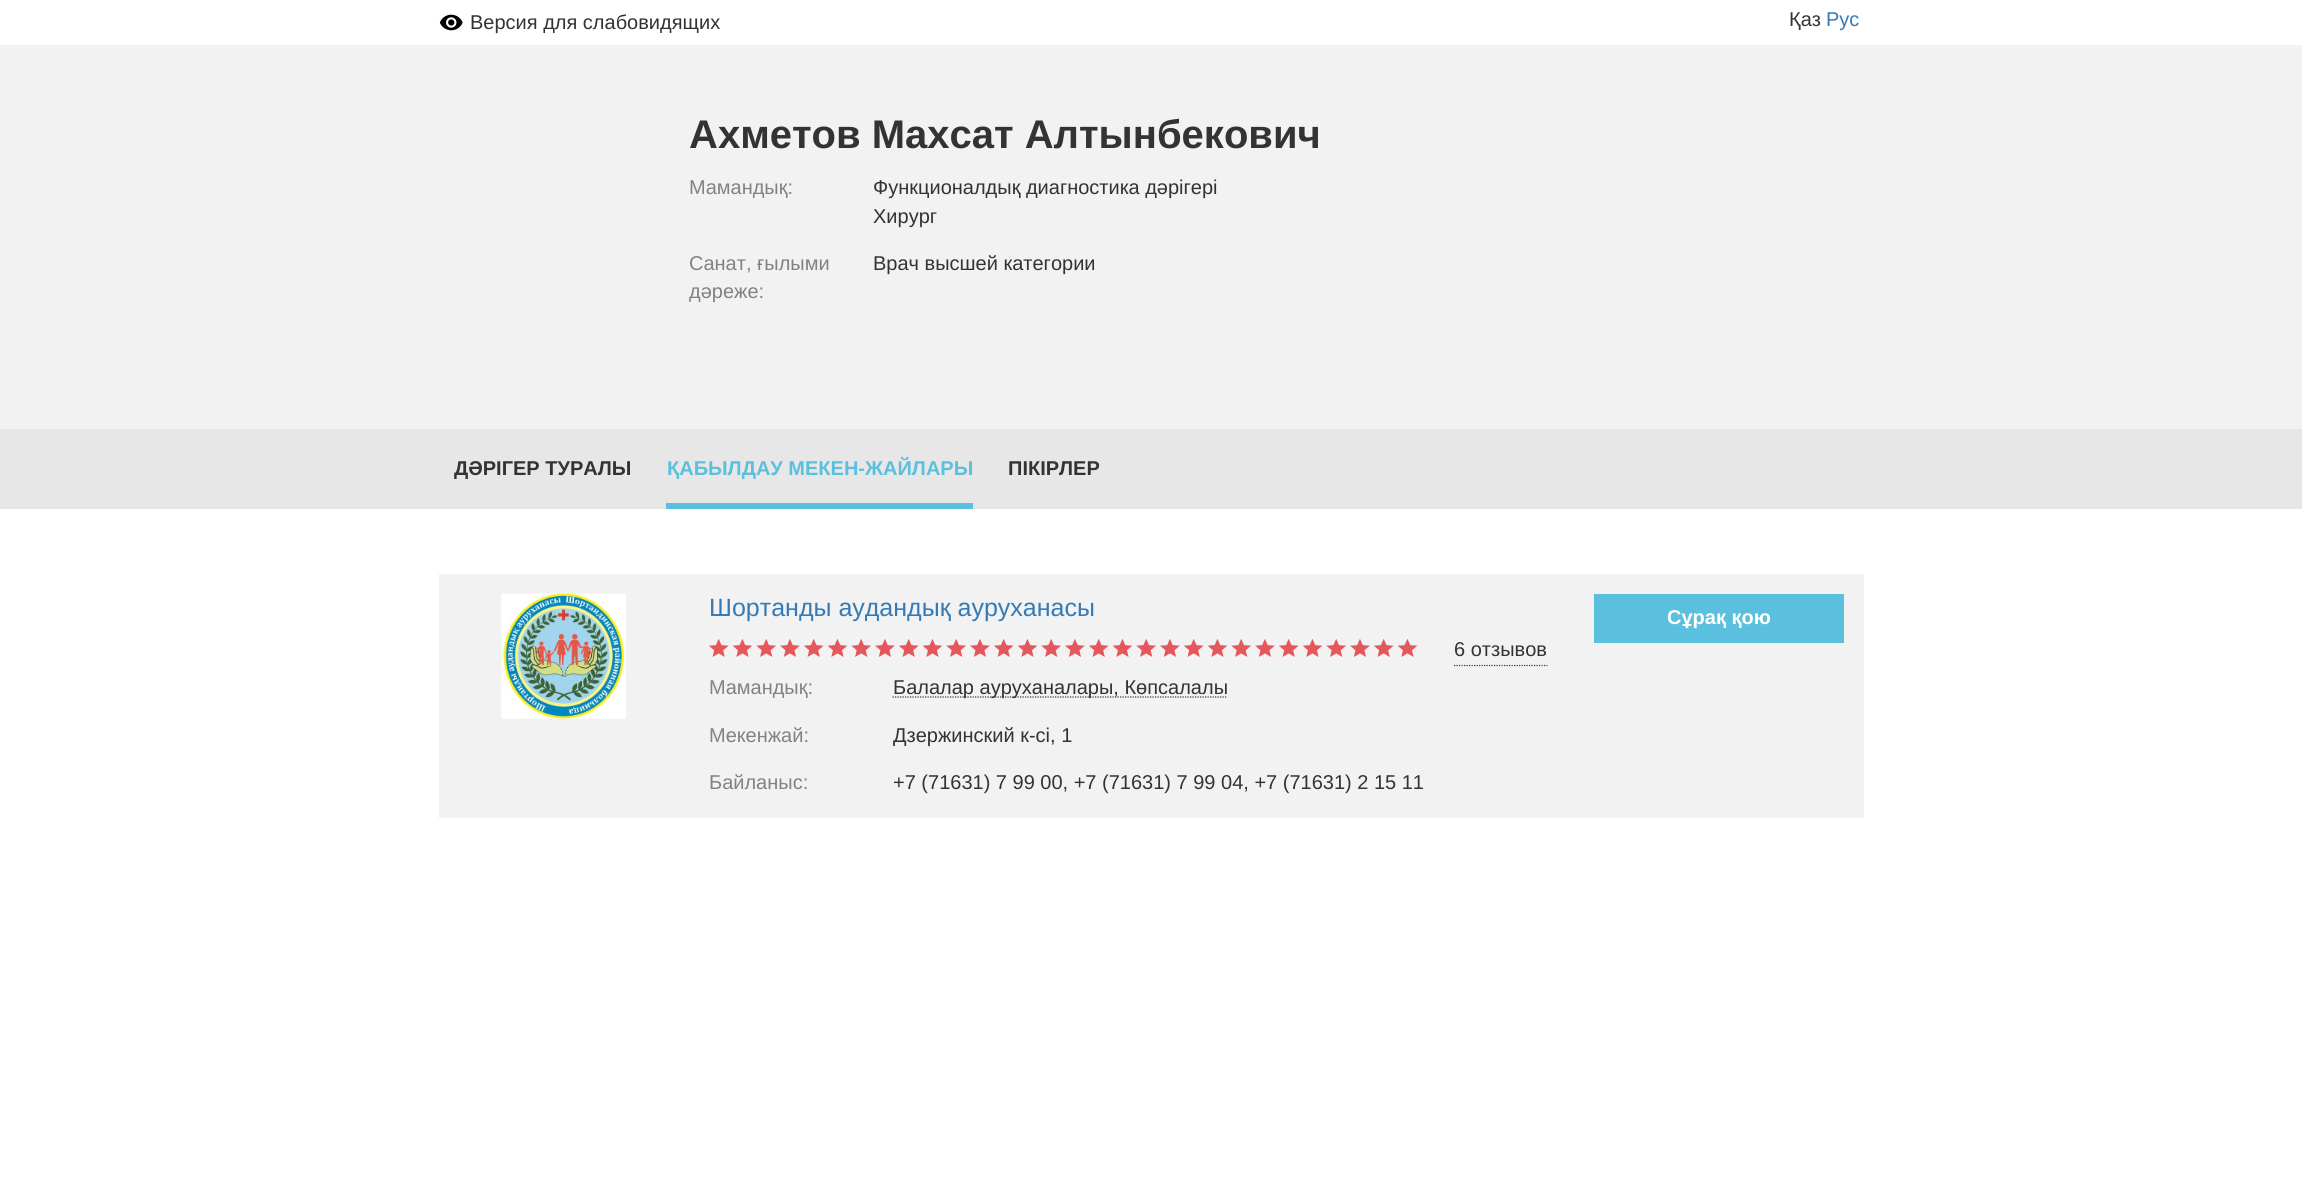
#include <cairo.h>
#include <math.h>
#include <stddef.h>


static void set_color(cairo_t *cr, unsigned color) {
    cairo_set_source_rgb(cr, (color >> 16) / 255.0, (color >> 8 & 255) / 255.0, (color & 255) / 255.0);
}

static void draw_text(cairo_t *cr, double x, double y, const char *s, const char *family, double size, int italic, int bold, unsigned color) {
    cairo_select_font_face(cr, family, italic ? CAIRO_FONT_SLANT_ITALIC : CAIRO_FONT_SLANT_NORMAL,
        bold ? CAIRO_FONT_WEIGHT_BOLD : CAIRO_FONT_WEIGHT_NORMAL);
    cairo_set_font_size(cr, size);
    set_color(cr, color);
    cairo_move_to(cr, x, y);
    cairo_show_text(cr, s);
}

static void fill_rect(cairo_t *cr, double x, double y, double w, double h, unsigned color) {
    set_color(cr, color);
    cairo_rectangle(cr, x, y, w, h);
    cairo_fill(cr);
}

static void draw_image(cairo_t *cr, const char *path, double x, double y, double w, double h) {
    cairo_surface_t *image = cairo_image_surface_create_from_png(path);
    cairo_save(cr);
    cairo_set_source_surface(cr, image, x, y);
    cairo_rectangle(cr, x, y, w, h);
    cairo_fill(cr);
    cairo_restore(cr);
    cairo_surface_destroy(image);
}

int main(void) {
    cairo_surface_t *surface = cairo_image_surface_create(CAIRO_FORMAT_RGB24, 2302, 1185);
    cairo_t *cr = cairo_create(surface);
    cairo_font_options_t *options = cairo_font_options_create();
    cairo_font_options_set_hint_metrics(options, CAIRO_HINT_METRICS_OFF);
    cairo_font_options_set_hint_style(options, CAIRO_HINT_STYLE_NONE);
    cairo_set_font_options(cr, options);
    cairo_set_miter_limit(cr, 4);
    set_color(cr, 0xFFFFFF);
    cairo_paint(cr);
    draw_image(cr, "assets/img1.png", 439, 14, 24, 17);
    draw_text(cr, 470, 29, "Версия для слабовидящих", "Liberation Sans", 20, 0, 0, 0x333333);
    draw_text(cr, 1789, 26, "Қаз", "Liberation Sans", 20, 0, 0, 0x333333);
    draw_text(cr, 1826, 26, "Рус", "Liberation Sans", 20, 0, 0, 0x337AB7);
    fill_rect(cr, 0, 45, 2302, 384, 0xF2F2F2);
    draw_text(cr, 689, 148, "Ахметов Махсат Алтынбекович", "Liberation Sans", 40, 0, 1, 0x333333);
    draw_text(cr, 689, 194, "Мамандық:", "Liberation Sans", 20, 0, 0, 0x828282);
    draw_text(cr, 873, 194, "Функционалдық диагностика дәрігері", "Liberation Sans", 20, 0, 0, 0x333333);
    draw_text(cr, 873, 223, "Хирург", "Liberation Sans", 20, 0, 0, 0x333333);
    draw_text(cr, 689, 270, "Санат, ғылыми", "Liberation Sans", 20, 0, 0, 0x828282);
    draw_text(cr, 689, 298, "дәреже:", "Liberation Sans", 20, 0, 0, 0x828282);
    draw_text(cr, 873, 270, "Врач высшей категории", "Liberation Sans", 20, 0, 0, 0x333333);
    fill_rect(cr, 0, 429, 2302, 80, 0xE7E7E7);
    draw_text(cr, 454, 475, "ДӘРІГЕР ТУРАЛЫ", "Liberation Sans", 20, 0, 1, 0x333333);
    draw_text(cr, 667, 475, "ҚАБЫЛДАУ МЕКЕН-ЖАЙЛАРЫ", "Liberation Sans", 20, 0, 1, 0x5BC0DE);
    fill_rect(cr, 666, 503, 307, 6, 0x5BC0DE);
    draw_text(cr, 1008, 475, "ПІКІРЛЕР", "Liberation Sans", 20, 0, 1, 0x333333);
    fill_rect(cr, 439, 574, 1425, 244, 0xF2F2F2);
    draw_image(cr, "assets/img2.png", 501, 593, 125, 126);
    draw_text(cr, 709, 616, "Шортанды аудандық ауруханасы", "Liberation Sans", 25, 0, 0, 0x337AB7);
    draw_image(cr, "assets/img3.png", 709, 639, 20, 18);
    draw_image(cr, "assets/img4.png", 733, 639, 20, 18);
    draw_image(cr, "assets/img5.png", 756, 639, 20, 18);
    draw_image(cr, "assets/img6.png", 780, 639, 20, 18);
    draw_image(cr, "assets/img3.png", 804, 639, 20, 18);
    draw_image(cr, "assets/img4.png", 828, 639, 20, 18);
    draw_image(cr, "assets/img5.png", 851, 639, 20, 18);
    draw_image(cr, "assets/img6.png", 875, 639, 20, 18);
    draw_image(cr, "assets/img3.png", 899, 639, 20, 18);
    draw_image(cr, "assets/img4.png", 923, 639, 20, 18);
    draw_image(cr, "assets/img5.png", 946, 639, 20, 18);
    draw_image(cr, "assets/img6.png", 970, 639, 20, 18);
    draw_image(cr, "assets/img3.png", 994, 639, 20, 18);
    draw_image(cr, "assets/img4.png", 1018, 639, 20, 18);
    draw_image(cr, "assets/img5.png", 1041, 639, 20, 18);
    draw_image(cr, "assets/img6.png", 1065, 639, 20, 18);
    draw_image(cr, "assets/img3.png", 1089, 639, 20, 18);
    draw_image(cr, "assets/img4.png", 1113, 639, 20, 18);
    draw_image(cr, "assets/img5.png", 1136, 639, 20, 18);
    draw_image(cr, "assets/img6.png", 1160, 639, 20, 18);
    draw_image(cr, "assets/img3.png", 1184, 639, 20, 18);
    draw_image(cr, "assets/img4.png", 1208, 639, 20, 18);
    draw_image(cr, "assets/img5.png", 1231, 639, 20, 18);
    draw_image(cr, "assets/img6.png", 1255, 639, 20, 18);
    draw_image(cr, "assets/img3.png", 1279, 639, 20, 18);
    draw_image(cr, "assets/img4.png", 1303, 639, 20, 18);
    draw_image(cr, "assets/img5.png", 1326, 639, 20, 18);
    draw_image(cr, "assets/img6.png", 1350, 639, 20, 18);
    draw_image(cr, "assets/img3.png", 1374, 639, 20, 18);
    draw_image(cr, "assets/img4.png", 1398, 639, 20, 18);
    cairo_new_path(cr);
    cairo_move_to(cr, 1454, 665.5);
    cairo_line_to(cr, 1547.5, 665.5);
    set_color(cr, 0x333333);
    cairo_set_line_width(cr, 1.2);
    cairo_set_dash(cr, (double[]){1.25, 1.25}, 2, 0);
    cairo_stroke(cr);
    draw_text(cr, 1454, 656, "6 отзывов", "Liberation Sans", 20, 0, 0, 0x333333);
    draw_text(cr, 709, 694, "Мамандық:", "Liberation Sans", 20, 0, 0, 0x828282);
    cairo_new_path(cr);
    cairo_move_to(cr, 892.5, 697);
    cairo_line_to(cr, 1227.5, 697);
    set_color(cr, 0x333333);
    cairo_stroke(cr);
    draw_text(cr, 893, 694, "Балалар ауруханалары, Көпсалалы", "Liberation Sans", 20, 0, 0, 0x333333);
    draw_text(cr, 709, 742, "Мекенжай:", "Liberation Sans", 20, 0, 0, 0x828282);
    draw_text(cr, 893, 742, "Дзержинский к-сі, 1", "Liberation Sans", 20, 0, 0, 0x333333);
    draw_text(cr, 709, 789, "Байланыс:", "Liberation Sans", 20, 0, 0, 0x828282);
    draw_text(cr, 893, 789, "+7 (71631) 7 99 00, +7 (71631) 7 99 04, +7 (71631) 2 15 11", "Liberation Sans", 20, 0, 0, 0x333333);
    fill_rect(cr, 1594, 594, 250, 49, 0x5BC0DE);
    draw_text(cr, 1667, 624, "Сұрақ қою", "Liberation Sans", 20, 0, 1, 0xFFFFFF);
    cairo_surface_write_to_png(surface, "output.png");
    cairo_font_options_destroy(options);
    cairo_destroy(cr);
    cairo_surface_destroy(surface);
    return 0;
}
